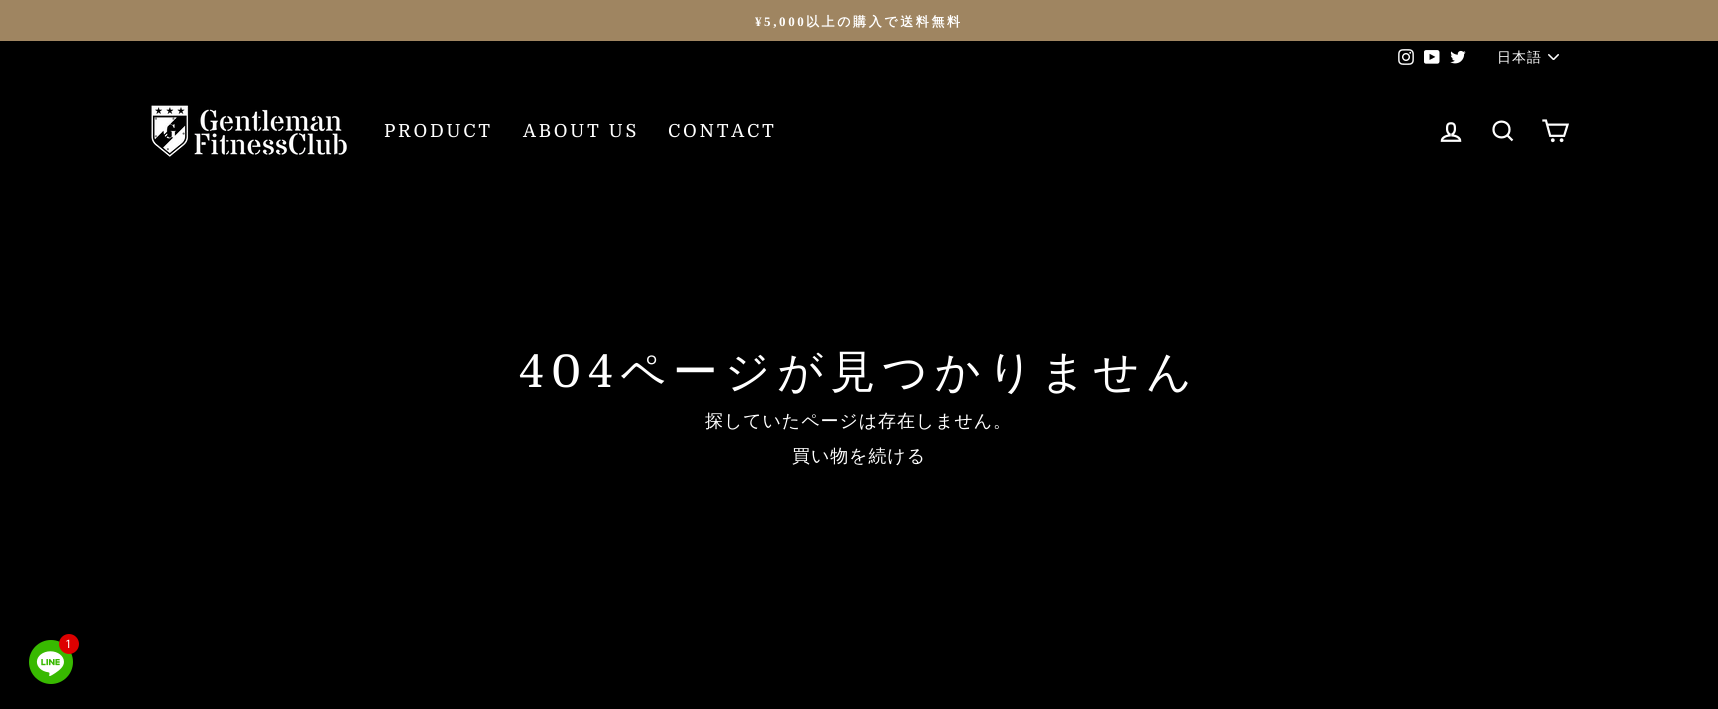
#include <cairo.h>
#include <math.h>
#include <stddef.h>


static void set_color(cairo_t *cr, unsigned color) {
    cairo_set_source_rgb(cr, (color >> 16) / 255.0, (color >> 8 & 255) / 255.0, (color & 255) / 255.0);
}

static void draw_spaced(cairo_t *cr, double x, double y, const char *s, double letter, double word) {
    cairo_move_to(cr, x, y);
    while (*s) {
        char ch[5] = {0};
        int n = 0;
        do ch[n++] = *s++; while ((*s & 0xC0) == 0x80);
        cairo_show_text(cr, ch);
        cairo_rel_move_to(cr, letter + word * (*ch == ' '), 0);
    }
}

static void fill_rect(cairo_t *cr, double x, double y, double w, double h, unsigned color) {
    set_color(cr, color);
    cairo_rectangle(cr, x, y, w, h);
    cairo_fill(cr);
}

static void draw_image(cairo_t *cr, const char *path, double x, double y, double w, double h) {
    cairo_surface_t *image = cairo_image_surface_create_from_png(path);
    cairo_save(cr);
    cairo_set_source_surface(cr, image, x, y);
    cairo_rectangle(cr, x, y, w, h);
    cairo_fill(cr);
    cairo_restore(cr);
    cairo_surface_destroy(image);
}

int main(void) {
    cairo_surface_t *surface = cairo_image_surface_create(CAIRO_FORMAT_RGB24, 1718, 709);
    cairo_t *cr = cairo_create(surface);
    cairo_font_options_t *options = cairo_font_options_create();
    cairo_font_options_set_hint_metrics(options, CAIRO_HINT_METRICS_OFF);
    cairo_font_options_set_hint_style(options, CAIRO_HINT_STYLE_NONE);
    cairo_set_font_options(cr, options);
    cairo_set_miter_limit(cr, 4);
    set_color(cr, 0x000000);
    cairo_paint(cr);
    fill_rect(cr, 0, 0, 1718, 41, 0x9F8561);
    cairo_select_font_face(cr, "Liberation Serif", CAIRO_FONT_SLANT_NORMAL, CAIRO_FONT_WEIGHT_BOLD);
    cairo_set_font_size(cr, 13);
    set_color(cr, 0xFFFFFF);
    draw_spaced(cr, 755, 26, "¥5,000", 2.6, 0);
    cairo_select_font_face(cr, "WenQuanYi Zen Hei", CAIRO_FONT_SLANT_NORMAL, CAIRO_FONT_WEIGHT_BOLD);
    draw_spaced(cr, 806, 26, "以上の購入で送料無料", 2.6, 0);
    draw_image(cr, "assets/img1.png", 1398, 49, 16, 16);
    draw_image(cr, "assets/img2.png", 1424, 50, 16, 14);
    draw_image(cr, "assets/img3.png", 1450, 50, 16, 14);
    draw_image(cr, "assets/img4.png", 1548, 54, 11, 6);
    cairo_select_font_face(cr, "WenQuanYi Zen Hei Medium", CAIRO_FONT_SLANT_NORMAL, CAIRO_FONT_WEIGHT_NORMAL);
    cairo_set_font_size(cr, 14);
    draw_spaced(cr, 1497, 62, "日本語", 1, 0);
    draw_image(cr, "assets/img5.png", 151, 105, 196, 52);
    cairo_select_font_face(cr, "Domine", CAIRO_FONT_SLANT_NORMAL, CAIRO_FONT_WEIGHT_NORMAL);
    cairo_set_font_size(cr, 18);
    draw_spaced(cr, 384, 137, "PRODUCT", 2.75, 0);
    draw_spaced(cr, 523, 137, "ABOUT US", 2.75, 0);
    draw_spaced(cr, 668, 137, "CONTACT", 2.75, 0);
    draw_image(cr, "assets/img6.png", 1440, 122, 22, 20);
    cairo_new_path(cr);
    cairo_move_to(cr, 1509.5, 129.5);
    cairo_curve_to(cr, 1509.5, 140, 1493.5, 140, 1493.5, 129.5);
    cairo_curve_to(cr, 1493.5, 119, 1509.5, 119, 1509.5, 129.5);
    cairo_close_path(cr);
    cairo_move_to(cr, 1512.5, 140.5);
    cairo_line_to(cr, 1507.5, 135.5);
    cairo_set_line_width(cr, 2.2);
    cairo_stroke(cr);
    draw_image(cr, "assets/img7.png", 1542, 119, 27, 24);
    cairo_set_font_size(cr, 45);
    draw_spaced(cr, 519, 387, "404", 6.75, 0);
    cairo_select_font_face(cr, "WenQuanYi Zen Hei Medium", CAIRO_FONT_SLANT_NORMAL, CAIRO_FONT_WEIGHT_NORMAL);
    draw_spaced(cr, 620, 387, "ページが見つかりません", 6.75, 0);
    cairo_set_font_size(cr, 18);
    draw_spaced(cr, 705, 427, "探していたページは存在しません。", 0.9, 0);
    draw_spaced(cr, 792, 462, "買い物を続ける", 0.9, 0);
    draw_image(cr, "assets/img8.png", 29, 640, 44, 44);
    set_color(cr, 0xDD0000);
    cairo_arc(cr, 69, 644, 10, 0, 2 * M_PI);
    cairo_fill(cr);
    cairo_select_font_face(cr, "Saira Thin", CAIRO_FONT_SLANT_NORMAL, CAIRO_FONT_WEIGHT_NORMAL);
    cairo_set_font_size(cr, 12);
    set_color(cr, 0xFFFFFF);
    draw_spaced(cr, 66, 648, "1", 1, 0);
    cairo_surface_write_to_png(surface, "output.png");
    cairo_font_options_destroy(options);
    cairo_destroy(cr);
    cairo_surface_destroy(surface);
    return 0;
}
